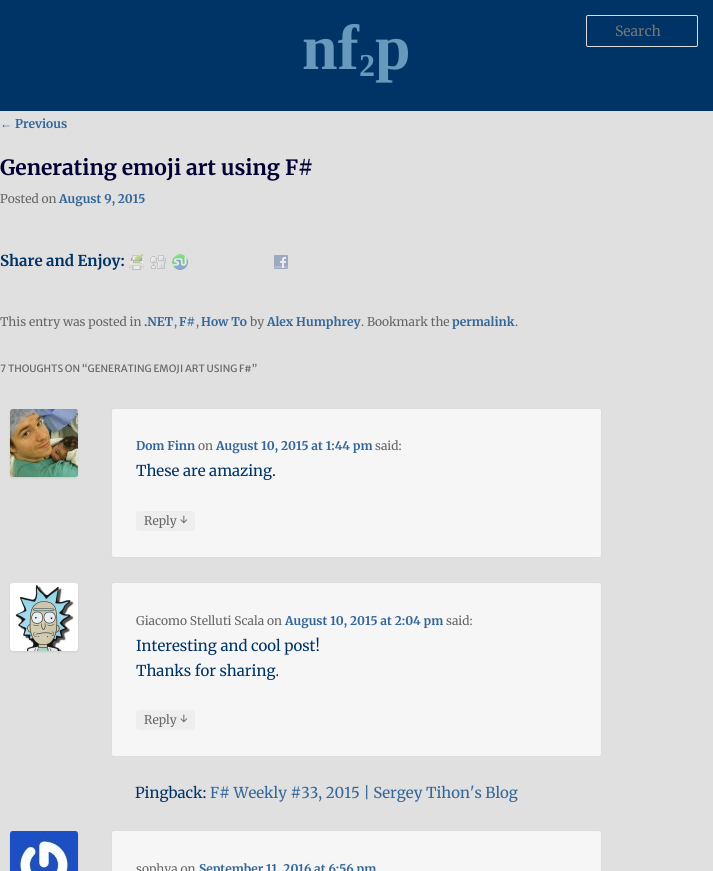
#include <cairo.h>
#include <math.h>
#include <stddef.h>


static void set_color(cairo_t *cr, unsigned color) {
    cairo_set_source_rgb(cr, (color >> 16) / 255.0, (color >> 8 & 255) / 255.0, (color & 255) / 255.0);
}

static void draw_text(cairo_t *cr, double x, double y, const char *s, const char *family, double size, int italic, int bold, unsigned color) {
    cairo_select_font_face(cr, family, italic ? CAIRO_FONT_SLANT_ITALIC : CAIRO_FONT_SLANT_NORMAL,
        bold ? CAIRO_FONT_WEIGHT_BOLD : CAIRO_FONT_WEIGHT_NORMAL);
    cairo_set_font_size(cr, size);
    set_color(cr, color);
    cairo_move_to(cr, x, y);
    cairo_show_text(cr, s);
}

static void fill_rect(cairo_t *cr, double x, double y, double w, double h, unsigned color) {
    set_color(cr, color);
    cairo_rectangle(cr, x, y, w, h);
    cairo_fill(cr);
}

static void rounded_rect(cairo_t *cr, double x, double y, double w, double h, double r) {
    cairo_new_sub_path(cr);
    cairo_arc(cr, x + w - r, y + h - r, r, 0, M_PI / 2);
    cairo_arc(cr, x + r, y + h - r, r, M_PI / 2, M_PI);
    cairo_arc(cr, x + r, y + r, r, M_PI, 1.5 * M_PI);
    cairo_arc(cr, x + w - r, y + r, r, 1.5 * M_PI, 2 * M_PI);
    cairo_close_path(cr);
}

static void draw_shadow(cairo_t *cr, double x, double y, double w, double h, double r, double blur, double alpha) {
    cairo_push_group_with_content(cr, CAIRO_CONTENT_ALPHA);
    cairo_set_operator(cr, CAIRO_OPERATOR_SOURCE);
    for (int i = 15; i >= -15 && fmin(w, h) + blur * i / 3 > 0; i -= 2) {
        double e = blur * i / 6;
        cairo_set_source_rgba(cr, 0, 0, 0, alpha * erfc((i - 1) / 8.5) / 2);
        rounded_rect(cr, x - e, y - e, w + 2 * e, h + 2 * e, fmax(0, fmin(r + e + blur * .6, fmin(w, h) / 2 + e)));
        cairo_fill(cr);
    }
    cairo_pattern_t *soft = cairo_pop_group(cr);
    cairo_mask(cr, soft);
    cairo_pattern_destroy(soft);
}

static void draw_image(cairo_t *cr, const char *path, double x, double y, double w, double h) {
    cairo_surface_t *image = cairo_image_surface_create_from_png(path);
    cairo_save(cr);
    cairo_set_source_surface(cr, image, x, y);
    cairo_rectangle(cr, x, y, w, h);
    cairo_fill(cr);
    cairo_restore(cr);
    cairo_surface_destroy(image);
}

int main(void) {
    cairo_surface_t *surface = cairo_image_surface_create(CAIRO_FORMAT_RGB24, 713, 871);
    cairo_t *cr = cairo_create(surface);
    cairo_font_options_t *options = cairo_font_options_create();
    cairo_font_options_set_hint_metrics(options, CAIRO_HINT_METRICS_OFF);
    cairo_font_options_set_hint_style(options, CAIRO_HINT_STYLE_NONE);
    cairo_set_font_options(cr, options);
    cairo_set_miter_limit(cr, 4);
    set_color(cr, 0xE0E0E0);
    cairo_paint(cr);
    fill_rect(cr, 0, 0, 713, 111, 0x003366);
    draw_text(cr, 302, 69, "nf p", "Liberation Serif", 64, 0, 1, 0x6699BB);
    draw_text(cr, 359, 76, "2", "Liberation Serif", 32, 0, 1, 0x6699BB);
    set_color(cr, 0x002E5C);
    cairo_new_path(cr);
    cairo_move_to(cr, 588, 17);
    cairo_line_to(cr, 697, 17);
    cairo_line_to(cr, 697, 18);
    cairo_line_to(cr, 696, 16);
    cairo_line_to(cr, 606, 16);
    cairo_curve_to(cr, 602, 16, 587, 11, 587, 18);
    cairo_curve_to(cr, 587, 17, 587, 17, 588, 17);
    cairo_close_path(cr);
    cairo_fill(cr);
    rounded_rect(cr, 586.5, 15.5, 111, 31, 1.5);
    set_color(cr, 0xDDDDDD);
    cairo_set_line_width(cr, 1);
    cairo_stroke(cr);
    draw_text(cr, 615, 36, "Search", "Merriweather", 14, 0, 0, 0x757575);
    draw_text(cr, 0, 128, "←", "Liberation Serif", 12, 0, 0, 0x336699);
    draw_text(cr, 15, 128, "Previous", "Merriweather", 12, 0, 1, 0x336699);
    draw_text(cr, 0, 175, "Generating emoji art using F#", "Merriweather", 21, 0, 1, 0x000033);
    draw_text(cr, 0, 203, "Posted on", "Merriweather", 12, 0, 0, 0x666666);
    draw_text(cr, 59, 203, "August 9, 2015", "Merriweather", 12, 0, 1, 0x336699);
    draw_text(cr, 0, 266, "Share and Enjoy:", "Merriweather", 15, 0, 1, 0x003366);
    draw_image(cr, "assets/img1.png", 129, 254, 15, 16);
    draw_image(cr, "assets/img2.png", 150, 255, 16, 14);
    draw_image(cr, "assets/img3.png", 172, 254, 16, 16);
    draw_image(cr, "assets/img4.png", 274, 255, 14, 14);
    draw_text(cr, 0, 326, "This entry was posted in", "Merriweather", 12, 0, 0, 0x666666);
    draw_text(cr, 144, 326, ".NET", "Merriweather", 12, 0, 1, 0x336699);
    draw_text(cr, 174, 326, ",", "Merriweather", 12, 0, 0, 0x666666);
    draw_text(cr, 179, 326, "F#", "Merriweather", 12, 0, 1, 0x336699);
    draw_text(cr, 196, 326, ",", "Merriweather", 12, 0, 0, 0x666666);
    draw_text(cr, 201, 326, "How To", "Merriweather", 12, 0, 1, 0x336699);
    draw_text(cr, 250, 326, "by", "Merriweather", 12, 0, 0, 0x666666);
    draw_text(cr, 267, 326, "Alex Humphrey", "Merriweather", 12, 0, 1, 0x336699);
    draw_text(cr, 361, 326, ". Bookmark the", "Merriweather", 12, 0, 0, 0x666666);
    draw_text(cr, 452, 326, "permalink", "Merriweather", 12, 0, 1, 0x336699);
    draw_text(cr, 515, 326, ".", "Merriweather", 12, 0, 0, 0x666666);
    draw_text(cr, 0, 372, "7 THOUGHTS ON “GENERATING EMOJI ART USING F#”", "Merriweather Sans", 10, 0, 0, 0x666666);
    set_color(cr, 0xF6F6F6);
    rounded_rect(cr, 111.5, 408.5, 490, 149, 2.5);
    cairo_fill_preserve(cr);
    set_color(cr, 0xDDDDDD);
    cairo_stroke(cr);
    set_color(cr, 0xCCCCCC);
    draw_shadow(cr, 10, 410, 68, 68, 3, 1, 1);
    draw_image(cr, "assets/img5.png", 10, 409, 68, 68);
    draw_text(cr, 136, 450, "Dom Finn", "Merriweather", 12, 0, 1, 0x336699);
    draw_text(cr, 198, 450, "on", "Merriweather", 12, 0, 0, 0x666666);
    draw_text(cr, 216, 450, "August 10, 2015 at 1:44 pm", "Merriweather", 12, 0, 1, 0x336699);
    draw_text(cr, 375, 450, "said:", "Merriweather", 12, 0, 0, 0x666666);
    draw_text(cr, 136, 476, "These are amazing.", "Merriweather", 15, 0, 0, 0x003366);
    set_color(cr, 0xEEEEEE);
    rounded_rect(cr, 136, 511, 59, 20, 3);
    cairo_fill(cr);
    draw_text(cr, 144, 525, "Reply", "Merriweather", 12, 0, 0, 0x666666);
    draw_text(cr, 180, 524, "↓", "Merriweather", 12, 0, 0, 0x666666);
    set_color(cr, 0xF6F6F6);
    rounded_rect(cr, 111.5, 582.5, 490, 174, 2.5);
    cairo_fill_preserve(cr);
    set_color(cr, 0xDDDDDD);
    cairo_stroke(cr);
    set_color(cr, 0xCCCCCC);
    draw_shadow(cr, 10, 584, 68, 68, 3, 1, 1);
    draw_image(cr, "assets/img6.png", 10, 583, 68, 68);
    draw_text(cr, 136, 625, "Giacomo Stelluti Scala on", "Merriweather", 12, 0, 0, 0x666666);
    draw_text(cr, 285, 625, "August 10, 2015 at 2:04 pm", "Merriweather", 12, 0, 1, 0x336699);
    draw_text(cr, 446, 625, "said:", "Merriweather", 12, 0, 0, 0x666666);
    draw_text(cr, 136, 651, "Interesting and cool post!", "Merriweather", 15, 0, 0, 0x003366);
    draw_text(cr, 136, 676, "Thanks for sharing.", "Merriweather", 15, 0, 0, 0x003366);
    set_color(cr, 0xEEEEEE);
    rounded_rect(cr, 136, 710, 59, 20, 3);
    cairo_fill(cr);
    draw_text(cr, 144, 724, "Reply", "Merriweather", 12, 0, 0, 0x666666);
    draw_text(cr, 180, 723, "↓", "Merriweather", 12, 0, 0, 0x666666);
    draw_text(cr, 135, 798, "Pingback:", "Merriweather", 15, 0, 0, 0x003366);
    draw_text(cr, 210, 798, "F# Weekly #33, 2015 | Sergey Tihon's Blog", "Merriweather", 15, 0, 0, 0x336699);
    set_color(cr, 0xF6F6F6);
    rounded_rect(cr, 111.5, 830.5, 490, 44, 2.5);
    cairo_fill_preserve(cr);
    set_color(cr, 0xDDDDDD);
    cairo_stroke(cr);
    set_color(cr, 0xCCCCCC);
    draw_shadow(cr, 10, 832, 68, 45, 3, 1, 1);
    draw_image(cr, "assets/img7.png", 10, 831, 68, 40);
    draw_text(cr, 136, 873, "sophya on", "Merriweather", 12, 0, 0, 0x666666);
    draw_text(cr, 199, 873, "September 11, 2016 at 6:56 pm", "Merriweather", 12, 0, 1, 0x336699);
    cairo_surface_write_to_png(surface, "output.png");
    cairo_font_options_destroy(options);
    cairo_destroy(cr);
    cairo_surface_destroy(surface);
    return 0;
}
